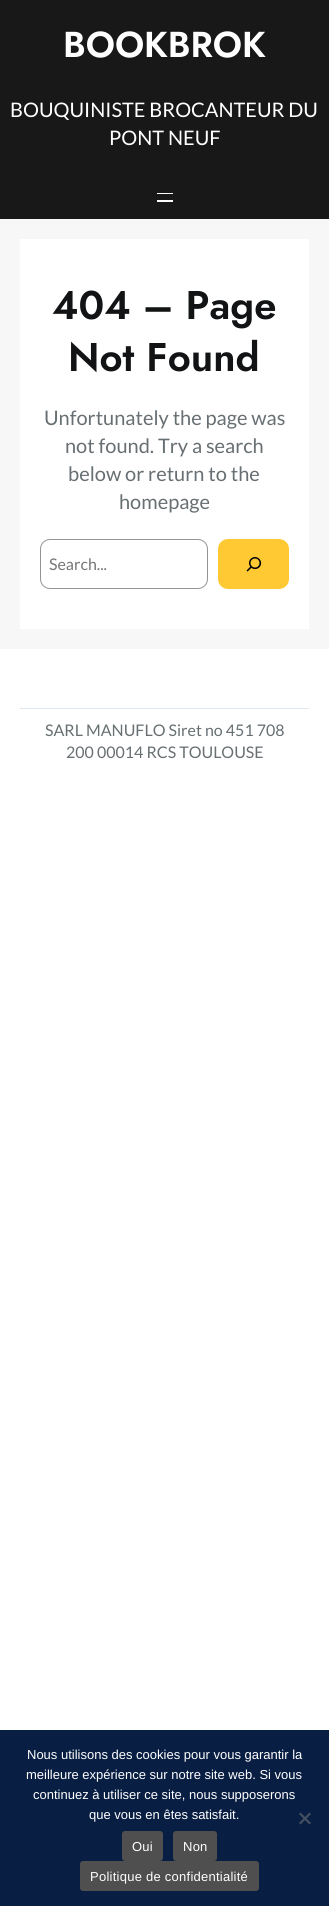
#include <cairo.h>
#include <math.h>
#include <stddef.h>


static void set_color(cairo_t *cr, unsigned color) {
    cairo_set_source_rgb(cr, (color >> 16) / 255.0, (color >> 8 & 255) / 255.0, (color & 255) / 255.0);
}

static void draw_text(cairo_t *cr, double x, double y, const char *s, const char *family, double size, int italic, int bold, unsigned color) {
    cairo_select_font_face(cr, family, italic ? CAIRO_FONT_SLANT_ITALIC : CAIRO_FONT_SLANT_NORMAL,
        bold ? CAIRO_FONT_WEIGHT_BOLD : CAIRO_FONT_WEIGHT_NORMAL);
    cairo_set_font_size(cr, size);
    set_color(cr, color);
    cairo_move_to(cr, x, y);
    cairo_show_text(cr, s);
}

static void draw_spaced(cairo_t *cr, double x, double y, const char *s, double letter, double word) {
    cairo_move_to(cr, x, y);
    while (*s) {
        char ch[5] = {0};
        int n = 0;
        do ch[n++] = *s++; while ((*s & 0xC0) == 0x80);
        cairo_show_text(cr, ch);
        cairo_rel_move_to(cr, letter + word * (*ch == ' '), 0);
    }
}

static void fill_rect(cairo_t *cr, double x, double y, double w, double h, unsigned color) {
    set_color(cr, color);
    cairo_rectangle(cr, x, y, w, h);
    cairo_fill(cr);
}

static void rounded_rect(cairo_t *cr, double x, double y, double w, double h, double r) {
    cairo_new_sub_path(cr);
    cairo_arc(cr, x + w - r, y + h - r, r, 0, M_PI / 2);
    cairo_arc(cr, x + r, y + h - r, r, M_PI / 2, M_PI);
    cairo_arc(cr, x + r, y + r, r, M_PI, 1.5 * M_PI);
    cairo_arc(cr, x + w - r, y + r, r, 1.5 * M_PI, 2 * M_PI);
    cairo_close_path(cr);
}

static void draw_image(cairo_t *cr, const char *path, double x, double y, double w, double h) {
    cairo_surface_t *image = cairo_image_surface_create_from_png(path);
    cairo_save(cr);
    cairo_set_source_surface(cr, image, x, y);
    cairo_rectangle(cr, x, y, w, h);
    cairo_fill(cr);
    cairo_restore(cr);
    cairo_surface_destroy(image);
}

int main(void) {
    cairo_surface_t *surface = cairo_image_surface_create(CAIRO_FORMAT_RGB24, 329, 1906);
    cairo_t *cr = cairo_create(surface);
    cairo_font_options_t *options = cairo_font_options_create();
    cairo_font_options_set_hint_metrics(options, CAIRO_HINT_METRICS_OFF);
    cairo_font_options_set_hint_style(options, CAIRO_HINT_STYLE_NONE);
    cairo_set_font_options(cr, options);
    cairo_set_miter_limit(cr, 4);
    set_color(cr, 0xFFFFFF);
    cairo_paint(cr);
    fill_rect(cr, 0, 0, 329, 219, 0x181819);
    draw_text(cr, 63, 57, "BOOKBROK", "Jost SemiBold", 36, 0, 0, 0xFFFFFF);
    draw_text(cr, 10, 117, "BOUQUINISTE BROCANTEUR DU", "Lato", 20, 0, 0, 0xFFFFFF);
    draw_text(cr, 109, 145, "PONT NEUF", "Lato", 20, 0, 0, 0xFFFFFF);
    fill_rect(cr, 157, 193, 16, 1, 0xFDFDFD);
    fill_rect(cr, 157, 200, 16, 2, 0xFDFDFD);
    fill_rect(cr, 0, 219, 329, 430, 0xF7F7F7);
    fill_rect(cr, 20, 239, 289, 390, 0xFFFFFF);
    draw_text(cr, 52, 319, "404 – Page", "Jost SemiBold", 40, 0, 0, 0x111314);
    draw_text(cr, 68, 371, "Not Found", "Jost SemiBold", 40, 0, 0, 0x111314);
    draw_text(cr, 44, 425, "Unfortunately the page was", "Lato", 20, 0, 0, 0x676F72);
    draw_text(cr, 65, 453, "not found. Try a search", "Lato", 20, 0, 0, 0x676F72);
    draw_text(cr, 68, 481, "below or return to the", "Lato", 20, 0, 0, 0x676F72);
    draw_text(cr, 119, 509, "homepage", "Lato", 20, 0, 0, 0x676F72);
    rounded_rect(cr, 40.5, 539.5, 167, 49, 9.5);
    set_color(cr, 0x949494);
    cairo_set_line_width(cr, 1);
    cairo_stroke(cr);
    draw_text(cr, 49, 570, "Search...", "Lato", 16, 0, 0, 0x757575);
    set_color(cr, 0xFFC934);
    rounded_rect(cr, 218, 539, 71, 50, 10);
    cairo_fill(cr);
    draw_image(cr, "assets/img1.png", 246, 557, 16, 15);
    fill_rect(cr, 20, 708, 289, 1, 0xE2E8F0);
    draw_text(cr, 45, 736, "SARL MANUFLO Siret no 451 708", "Lato", 16, 0, 0, 0x676F72);
    draw_text(cr, 66, 758, "200 00014 RCS TOULOUSE", "Lato", 16, 0, 0, 0x676F72);
    fill_rect(cr, 0, 1730, 329, 176, 0x091E43);
    draw_text(cr, 27, 1759, "Nous utilisons des cookies pour vous garantir la", "Liberation Sans", 13, 0, 0, 0xFFFFFF);
    draw_text(cr, 26, 1779, "meilleure expérience sur notre site web. Si vous", "Liberation Sans", 13, 0, 0, 0xFFFFFF);
    draw_text(cr, 33, 1799, "continuez à utiliser ce site, nous supposerons", "Liberation Sans", 13, 0, 0, 0xFFFFFF);
    draw_text(cr, 89, 1819, "que vous en êtes satisfait.", "Liberation Sans", 13, 0, 0, 0xFFFFFF);
    set_color(cr, 0x454F62);
    cairo_new_path(cr);
    cairo_move_to(cr, 309.5, 1812.5);
    cairo_line_to(cr, 311, 1814);
    cairo_line_to(cr, 300.5, 1824.5);
    cairo_line_to(cr, 299, 1823);
    cairo_close_path(cr);
    cairo_fill(cr);
    cairo_new_path(cr);
    cairo_move_to(cr, 299, 1814);
    cairo_line_to(cr, 300.5, 1812.5);
    cairo_line_to(cr, 311, 1823);
    cairo_line_to(cr, 309.5, 1824.5);
    cairo_close_path(cr);
    cairo_fill(cr);
    set_color(cr, 0x4F4F4F);
    rounded_rect(cr, 122, 1831, 41, 30, 3);
    cairo_fill(cr);
    set_color(cr, 0xFFFFFF);
    draw_spaced(cr, 132, 1851, "Oui", 0.25, 0);
    set_color(cr, 0x4F4F4F);
    rounded_rect(cr, 173, 1831, 44, 30, 3);
    cairo_fill(cr);
    set_color(cr, 0xFFFFFF);
    draw_spaced(cr, 183, 1851, "Non", 0.25, 0);
    set_color(cr, 0x4F4F4F);
    rounded_rect(cr, 80, 1861, 179, 30, 3);
    cairo_fill(cr);
    set_color(cr, 0xFFFFFF);
    draw_spaced(cr, 90, 1881, "Politique de confidentialité", 0.25, 0);
    cairo_surface_write_to_png(surface, "output.png");
    cairo_font_options_destroy(options);
    cairo_destroy(cr);
    cairo_surface_destroy(surface);
    return 0;
}
